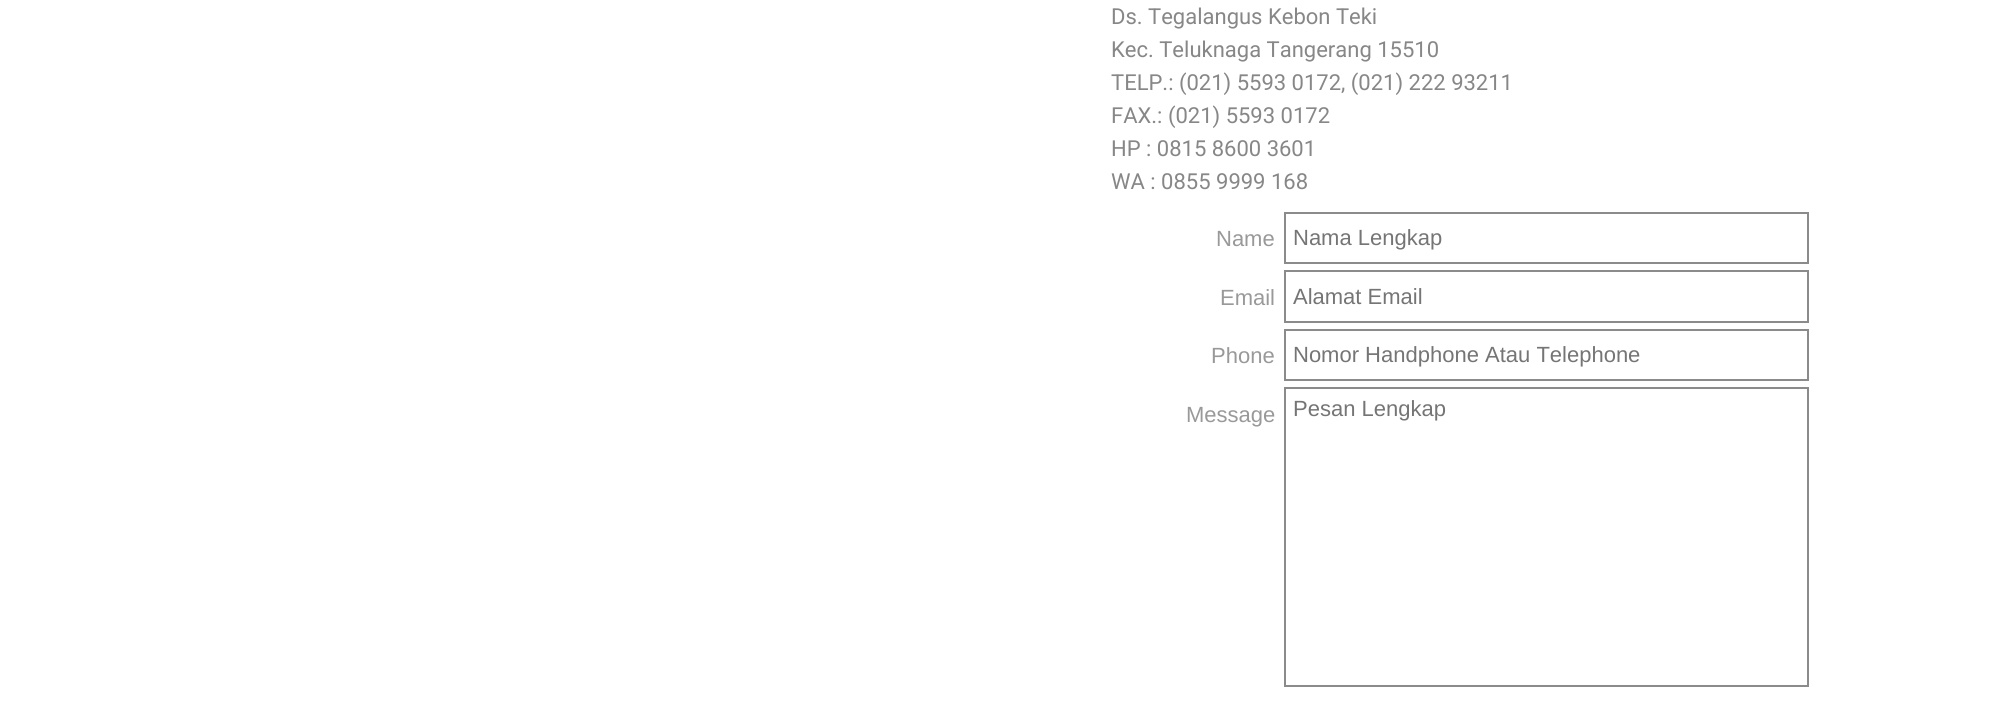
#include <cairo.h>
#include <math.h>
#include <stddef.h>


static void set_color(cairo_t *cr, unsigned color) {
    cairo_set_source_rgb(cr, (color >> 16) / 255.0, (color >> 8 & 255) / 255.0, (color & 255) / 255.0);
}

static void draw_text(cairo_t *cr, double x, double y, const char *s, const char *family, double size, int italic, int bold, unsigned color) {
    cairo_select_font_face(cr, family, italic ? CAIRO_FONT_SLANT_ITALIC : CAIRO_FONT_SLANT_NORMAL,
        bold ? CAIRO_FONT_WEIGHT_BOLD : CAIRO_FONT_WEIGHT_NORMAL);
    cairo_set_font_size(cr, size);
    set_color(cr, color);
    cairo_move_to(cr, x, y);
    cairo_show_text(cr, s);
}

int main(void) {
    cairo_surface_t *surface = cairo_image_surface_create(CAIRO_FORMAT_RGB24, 1996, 704);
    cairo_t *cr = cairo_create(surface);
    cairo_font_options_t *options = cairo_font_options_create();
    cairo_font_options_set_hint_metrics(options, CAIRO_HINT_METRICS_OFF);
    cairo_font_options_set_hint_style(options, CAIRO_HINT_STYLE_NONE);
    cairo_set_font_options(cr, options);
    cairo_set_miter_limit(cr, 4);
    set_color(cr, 0xFFFFFF);
    cairo_paint(cr);
    draw_text(cr, 1111, 24, "Ds. Tegalangus Kebon Teki", "Roboto", 22, 0, 0, 0x878787);
    draw_text(cr, 1111, 57, "Kec. Teluknaga Tangerang 15510", "Roboto", 22, 0, 0, 0x878787);
    draw_text(cr, 1111, 90, "TELP.: (021) 5593 0172, (021) 222 93211", "Roboto", 22, 0, 0, 0x878787);
    draw_text(cr, 1111, 123, "FAX.: (021) 5593 0172", "Roboto", 22, 0, 0, 0x878787);
    draw_text(cr, 1111, 156, "HP : 0815 8600 3601", "Roboto", 22, 0, 0, 0x878787);
    draw_text(cr, 1111, 189, "WA : 0855 9999 168", "Roboto", 22, 0, 0, 0x878787);
    draw_text(cr, 1216, 246, "Name", "Liberation Sans", 22, 0, 0, 0x999999);
    cairo_rectangle(cr, 1285, 213, 523, 50);
    set_color(cr, 0x8B8B8B);
    cairo_stroke(cr);
    draw_text(cr, 1293, 245, "Nama Lengkap", "Liberation Sans", 22, 0, 0, 0x757575);
    draw_text(cr, 1220, 305, "Email", "Liberation Sans", 22, 0, 0, 0x999999);
    cairo_rectangle(cr, 1285, 271, 523, 51);
    set_color(cr, 0x8B8B8B);
    cairo_stroke(cr);
    draw_text(cr, 1293, 304, "Alamat Email", "Liberation Sans", 22, 0, 0, 0x757575);
    draw_text(cr, 1211, 363, "Phone", "Liberation Sans", 22, 0, 0, 0x999999);
    cairo_rectangle(cr, 1285, 330, 523, 50);
    set_color(cr, 0x8B8B8B);
    cairo_stroke(cr);
    draw_text(cr, 1293, 362, "Nomor Handphone Atau Telephone", "Liberation Sans", 22, 0, 0, 0x757575);
    draw_text(cr, 1186, 422, "Message", "Liberation Sans", 22, 0, 0, 0x999999);
    cairo_rectangle(cr, 1285, 388, 523, 298);
    set_color(cr, 0x8B8B8B);
    cairo_stroke(cr);
    draw_text(cr, 1293, 416, "Pesan Lengkap", "Liberation Sans", 22, 0, 0, 0x757575);
    cairo_surface_write_to_png(surface, "output.png");
    cairo_font_options_destroy(options);
    cairo_destroy(cr);
    cairo_surface_destroy(surface);
    return 0;
}
